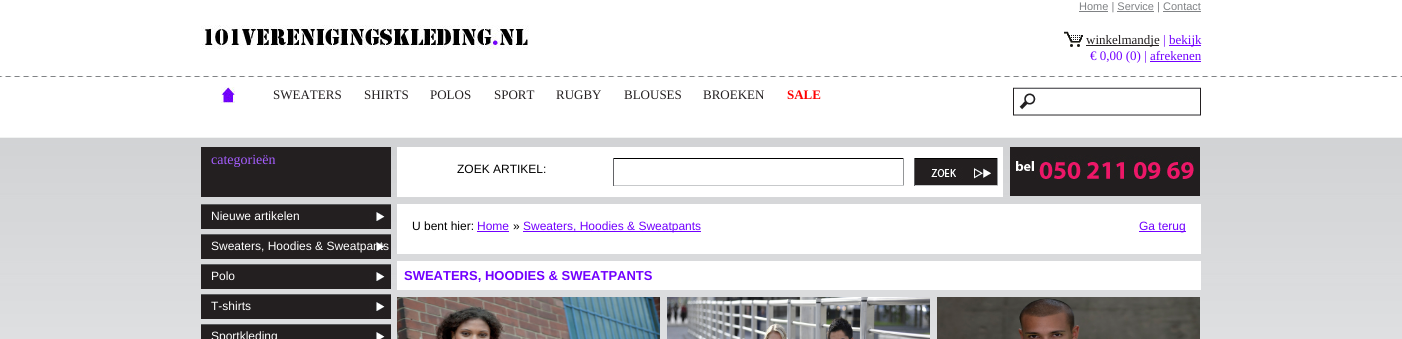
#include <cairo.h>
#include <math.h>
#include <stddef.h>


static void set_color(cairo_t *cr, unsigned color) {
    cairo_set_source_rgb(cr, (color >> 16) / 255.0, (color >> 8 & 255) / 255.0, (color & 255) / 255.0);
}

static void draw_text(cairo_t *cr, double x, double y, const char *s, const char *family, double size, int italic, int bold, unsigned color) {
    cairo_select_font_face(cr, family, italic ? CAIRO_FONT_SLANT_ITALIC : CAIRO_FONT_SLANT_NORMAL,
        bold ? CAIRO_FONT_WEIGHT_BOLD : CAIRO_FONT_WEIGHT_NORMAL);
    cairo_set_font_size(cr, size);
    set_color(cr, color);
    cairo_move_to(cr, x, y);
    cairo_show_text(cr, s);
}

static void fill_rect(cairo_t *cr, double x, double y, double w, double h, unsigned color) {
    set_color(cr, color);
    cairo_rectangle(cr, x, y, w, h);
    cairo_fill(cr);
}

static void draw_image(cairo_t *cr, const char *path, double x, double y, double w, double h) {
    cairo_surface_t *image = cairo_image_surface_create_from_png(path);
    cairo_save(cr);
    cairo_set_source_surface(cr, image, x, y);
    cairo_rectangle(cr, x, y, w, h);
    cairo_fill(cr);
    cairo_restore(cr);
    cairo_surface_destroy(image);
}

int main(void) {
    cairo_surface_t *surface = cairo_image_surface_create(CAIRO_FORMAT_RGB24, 1402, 339);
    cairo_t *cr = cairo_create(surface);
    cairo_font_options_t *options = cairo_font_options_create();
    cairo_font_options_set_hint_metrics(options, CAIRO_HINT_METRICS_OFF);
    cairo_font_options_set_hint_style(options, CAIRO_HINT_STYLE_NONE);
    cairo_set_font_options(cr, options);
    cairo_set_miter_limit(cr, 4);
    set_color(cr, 0xFFFFFF);
    cairo_paint(cr);
    draw_image(cr, "assets/img1.png", 0, 76, 1402, 1);
    draw_image(cr, "assets/img2.png", 201, 25, 328, 24);
    fill_rect(cr, 1079, 11, 29, 1, 0x808285);
    draw_text(cr, 1079, 10, "Home | Service | Contact", "Liberation Sans", 11, 0, 0, 0x808285);
    fill_rect(cr, 1117, 11, 37, 1, 0x808285);
    fill_rect(cr, 1163, 11, 38, 1, 0x808285);
    draw_image(cr, "assets/img3.png", 1064, 31, 19, 16);
    fill_rect(cr, 1086, 45, 73, 1, 0x231F20);
    draw_text(cr, 1086, 44, "winkelmandje", "Liberation Serif", 13, 0, 0, 0x231F20);
    draw_text(cr, 1163, 44, "|", "Liberation Serif", 13, 0, 0, 0x7200FF);
    fill_rect(cr, 1169, 45, 32, 1, 0x7200FF);
    draw_text(cr, 1169, 44, "bekijk", "Liberation Serif", 13, 0, 0, 0x7200FF);
    draw_text(cr, 1090, 60, "€ 0,00 (0) | afrekenen", "Liberation Serif", 13, 0, 0, 0x7200FF);
    fill_rect(cr, 1150, 61, 51, 1, 0x7200FF);
    draw_image(cr, "assets/img4.png", 221, 87, 14, 16);
    draw_text(cr, 273, 99, "SWEATERS", "Liberation Serif", 13, 0, 0, 0x231F20);
    draw_text(cr, 364, 99, "SHIRTS", "Liberation Serif", 13, 0, 0, 0x231F20);
    draw_text(cr, 430, 99, "POLOS", "Liberation Serif", 13, 0, 0, 0x231F20);
    draw_text(cr, 494, 99, "SPORT", "Liberation Serif", 13, 0, 0, 0x231F20);
    draw_text(cr, 556, 99, "RUGBY", "Liberation Serif", 13, 0, 0, 0x231F20);
    draw_text(cr, 624, 99, "BLOUSES", "Liberation Serif", 13, 0, 0, 0x231F20);
    draw_text(cr, 703, 99, "BROEKEN", "Liberation Serif", 13, 0, 0, 0x231F20);
    draw_text(cr, 787, 99, "SALE", "Liberation Serif", 13, 0, 1, 0xFF0000);
    draw_image(cr, "assets/img5.png", 1013, 87, 3, 29);
    draw_image(cr, "assets/img6.png", 1016, 87, 22, 29);
    draw_image(cr, "assets/img7.png", 1038, 87, 160, 29);
    draw_image(cr, "assets/img8.png", 1198, 87, 3, 29);
    draw_image(cr, "assets/img9.png", 0, 137, 1402, 202);
    fill_rect(cr, 201, 147, 190, 50, 0x231F20);
    draw_text(cr, 211, 164, "categorieën", "Liberation Serif", 14, 0, 0, 0xA55DFF);
    draw_image(cr, "assets/img10.png", 201, 204, 190, 25);
    draw_text(cr, 211, 220, "Nieuwe artikelen", "Liberation Sans", 12, 0, 0, 0xFFFFFF);
    draw_image(cr, "assets/img10.png", 201, 234, 190, 25);
    draw_text(cr, 211, 250, "Sweaters, Hoodies & Sweatpants", "Liberation Sans", 12, 0, 0, 0xFFFFFF);
    draw_image(cr, "assets/img10.png", 201, 264, 190, 25);
    draw_text(cr, 211, 280, "Polo", "Liberation Sans", 12, 0, 0, 0xFFFFFF);
    draw_image(cr, "assets/img10.png", 201, 294, 190, 25);
    draw_text(cr, 211, 310, "T-shirts", "Liberation Sans", 12, 0, 0, 0xFFFFFF);
    draw_image(cr, "assets/img11.png", 201, 324, 190, 15);
    draw_text(cr, 211, 340, "Sportkleding", "Liberation Sans", 12, 0, 0, 0xFFFFFF);
    fill_rect(cr, 397, 147, 606, 50, 0xFFFFFF);
    draw_text(cr, 457, 173, "ZOEK ARTIKEL:", "Liberation Sans", 12, 0, 0, 0x000000);
    fill_rect(cr, 613, 158, 291, 1, 0x000000);
    fill_rect(cr, 903, 158, 1, 28, 0x949698);
    fill_rect(cr, 613, 185, 291, 1, 0xC7C9CB);
    fill_rect(cr, 613, 158, 1, 28, 0x636467);
    draw_image(cr, "assets/img12.png", 915, 159, 82, 26);
    fill_rect(cr, 914, 158, 84, 1, 0x000000);
    fill_rect(cr, 997, 158, 1, 28, 0x949698);
    fill_rect(cr, 914, 185, 84, 1, 0xC7C9CB);
    fill_rect(cr, 914, 158, 1, 28, 0x636467);
    draw_image(cr, "assets/img13.png", 1010, 147, 190, 49);
    fill_rect(cr, 397, 204, 804, 50, 0xFFFFFF);
    draw_text(cr, 412, 230, "U bent hier:", "Liberation Sans", 12, 0, 0, 0x000000);
    draw_text(cr, 477, 230, "Home", "Liberation Sans", 12, 0, 0, 0x7200FF);
    fill_rect(cr, 477, 231, 32, 1, 0x7200FF);
    draw_text(cr, 513, 230, "»", "Liberation Sans", 12, 0, 0, 0x000000);
    fill_rect(cr, 523, 231, 178, 1, 0x7200FF);
    draw_text(cr, 523, 230, "Sweaters, Hoodies & Sweatpants", "Liberation Sans", 12, 0, 0, 0x7200FF);
    fill_rect(cr, 1139, 231, 47, 1, 0x7200FF);
    draw_text(cr, 1139, 230, "Ga terug", "Liberation Sans", 12, 0, 0, 0x7200FF);
    fill_rect(cr, 397, 261, 804, 29, 0xFFFFFF);
    draw_text(cr, 404, 280, "SWEATERS, HOODIES & SWEATPANTS", "Liberation Sans", 13, 0, 1, 0x7200FF);
    draw_image(cr, "assets/img14.png", 397, 297, 263, 42);
    draw_image(cr, "assets/img15.png", 667, 297, 263, 42);
    draw_image(cr, "assets/img16.png", 937, 297, 263, 42);
    cairo_surface_write_to_png(surface, "output.png");
    cairo_font_options_destroy(options);
    cairo_destroy(cr);
    cairo_surface_destroy(surface);
    return 0;
}
